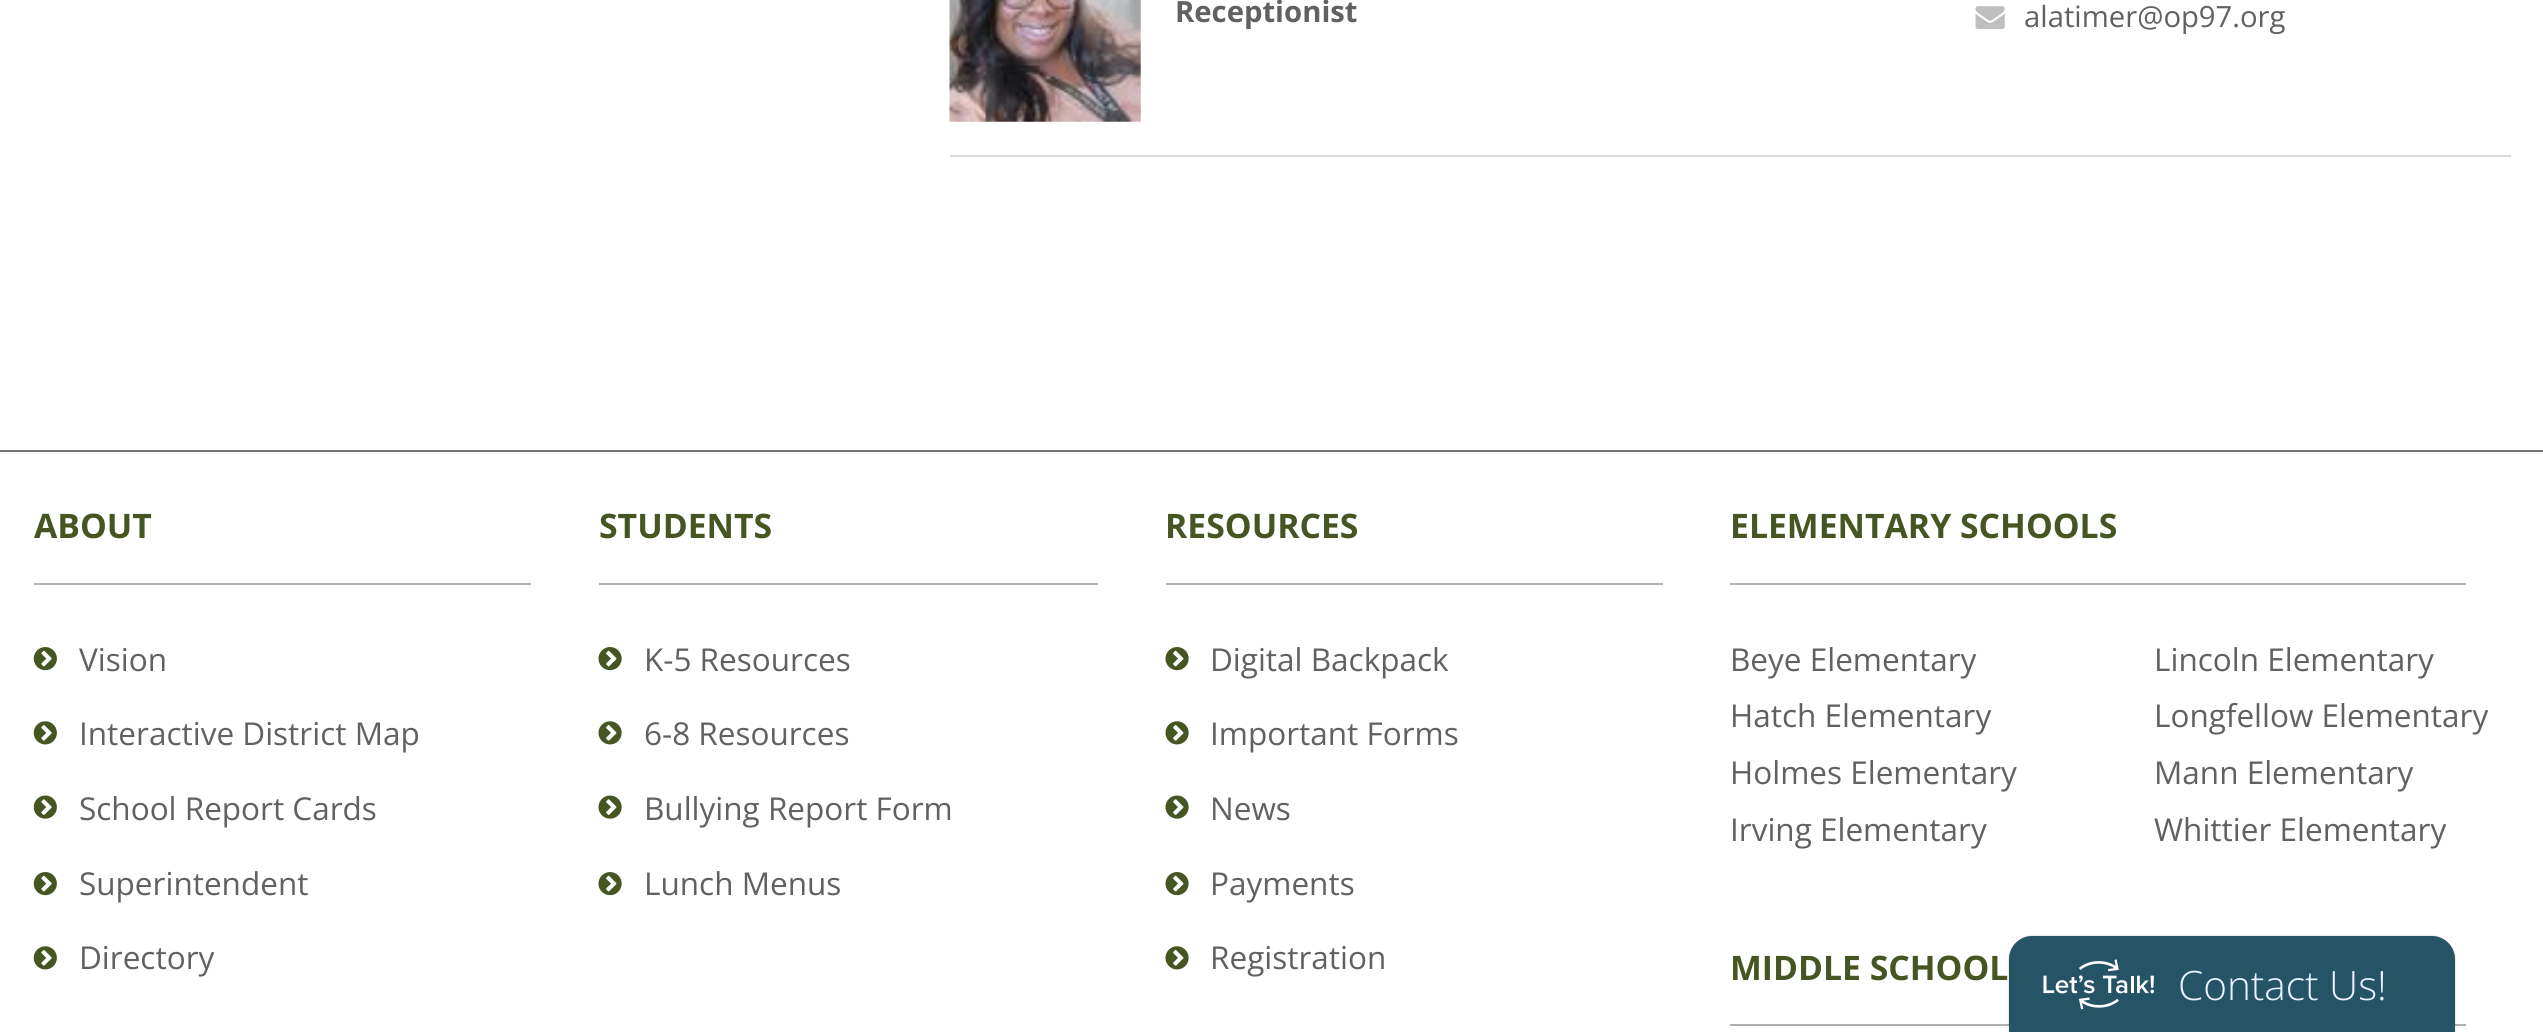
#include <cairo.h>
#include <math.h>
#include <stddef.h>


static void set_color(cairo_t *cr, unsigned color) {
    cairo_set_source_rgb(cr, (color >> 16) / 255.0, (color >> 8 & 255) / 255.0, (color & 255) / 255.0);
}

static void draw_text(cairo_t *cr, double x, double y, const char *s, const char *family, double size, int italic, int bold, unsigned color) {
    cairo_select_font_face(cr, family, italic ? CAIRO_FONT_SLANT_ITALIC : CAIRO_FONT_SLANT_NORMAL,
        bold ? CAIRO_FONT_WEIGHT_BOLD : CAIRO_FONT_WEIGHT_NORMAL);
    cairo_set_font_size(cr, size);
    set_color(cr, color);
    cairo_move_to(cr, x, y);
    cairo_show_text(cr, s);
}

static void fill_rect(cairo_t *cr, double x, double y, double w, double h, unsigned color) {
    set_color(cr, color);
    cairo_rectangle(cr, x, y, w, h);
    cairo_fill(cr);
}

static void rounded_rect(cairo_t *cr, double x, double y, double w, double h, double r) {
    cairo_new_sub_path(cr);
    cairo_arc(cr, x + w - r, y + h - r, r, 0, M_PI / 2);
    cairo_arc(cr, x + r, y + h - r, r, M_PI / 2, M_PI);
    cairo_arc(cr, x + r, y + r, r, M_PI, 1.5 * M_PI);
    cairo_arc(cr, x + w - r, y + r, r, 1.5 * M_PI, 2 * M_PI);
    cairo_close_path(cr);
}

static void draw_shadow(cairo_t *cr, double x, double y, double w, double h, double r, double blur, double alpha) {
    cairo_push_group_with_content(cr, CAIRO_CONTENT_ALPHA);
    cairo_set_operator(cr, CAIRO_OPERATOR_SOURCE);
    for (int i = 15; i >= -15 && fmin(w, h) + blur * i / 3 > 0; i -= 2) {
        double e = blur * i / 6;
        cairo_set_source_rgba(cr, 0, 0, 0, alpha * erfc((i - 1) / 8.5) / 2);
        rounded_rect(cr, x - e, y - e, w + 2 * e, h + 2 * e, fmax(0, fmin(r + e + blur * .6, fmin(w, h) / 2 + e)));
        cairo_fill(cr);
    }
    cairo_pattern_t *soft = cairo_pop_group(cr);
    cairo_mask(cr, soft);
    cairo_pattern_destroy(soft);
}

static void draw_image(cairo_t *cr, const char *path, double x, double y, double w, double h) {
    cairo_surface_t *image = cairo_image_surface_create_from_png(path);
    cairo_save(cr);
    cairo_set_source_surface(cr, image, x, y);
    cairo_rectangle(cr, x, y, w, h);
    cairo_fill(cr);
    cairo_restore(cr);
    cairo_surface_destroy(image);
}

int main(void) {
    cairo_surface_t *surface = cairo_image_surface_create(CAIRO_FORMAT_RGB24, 2543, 1032);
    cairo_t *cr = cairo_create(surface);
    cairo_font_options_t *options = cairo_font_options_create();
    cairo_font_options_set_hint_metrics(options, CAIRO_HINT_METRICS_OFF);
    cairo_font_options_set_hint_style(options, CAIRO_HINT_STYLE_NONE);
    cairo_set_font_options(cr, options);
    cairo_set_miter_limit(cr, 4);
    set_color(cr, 0xFFFFFF);
    cairo_paint(cr);
    fill_rect(cr, 950, 155, 1561, 2, 0xD9D9D9);
    draw_image(cr, "assets/img1.png", 949, 0, 192, 122);
    draw_text(cr, 1175, 22, "Receptionist", "Open Sans", 29.25, 0, 1, 0x606163);
    draw_image(cr, "assets/img2.png", 1975, 6, 30, 24);
    draw_text(cr, 2024, 27, "alatimer@op97.org", "Open Sans", 29.25, 0, 0, 0x606163);
    fill_rect(cr, 0, 450, 2543, 2, 0x787373);
    draw_text(cr, 34, 538, "ABOUT", "Open Sans", 33.75, 0, 1, 0x465622);
    fill_rect(cr, 34, 583, 497, 2, 0xB0B0B1);
    draw_image(cr, "assets/img3.png", 33, 647, 24, 24);
    draw_text(cr, 79, 671, "Vision", "Open Sans", 31.5, 0, 0, 0x606163);
    draw_image(cr, "assets/img4.png", 33, 721, 24, 24);
    draw_text(cr, 79, 745, "Interactive District Map", "Open Sans", 31.5, 0, 0, 0x606163);
    draw_image(cr, "assets/img5.png", 33, 795, 24, 24);
    draw_text(cr, 79, 820, "School Report Cards", "Open Sans", 31.5, 0, 0, 0x606163);
    draw_image(cr, "assets/img3.png", 33, 872, 24, 24);
    draw_text(cr, 79, 895, "Superintendent", "Open Sans", 31.5, 0, 0, 0x606163);
    draw_image(cr, "assets/img4.png", 33, 946, 24, 24);
    draw_text(cr, 79, 969, "Directory", "Open Sans", 31.5, 0, 0, 0x606163);
    draw_text(cr, 599, 538, "STUDENTS", "Open Sans", 33.75, 0, 1, 0x465622);
    fill_rect(cr, 599, 583, 499, 2, 0xB0B0B1);
    draw_image(cr, "assets/img6.png", 598, 647, 24, 24);
    draw_text(cr, 644, 671, "K-5 Resources", "Open Sans", 31.5, 0, 0, 0x606163);
    draw_image(cr, "assets/img7.png", 598, 721, 24, 24);
    draw_text(cr, 644, 745, "6-8 Resources", "Open Sans", 31.5, 0, 0, 0x606163);
    draw_image(cr, "assets/img8.png", 598, 795, 24, 24);
    draw_text(cr, 644, 820, "Bullying Report Form", "Open Sans", 31.5, 0, 0, 0x606163);
    draw_image(cr, "assets/img6.png", 598, 872, 24, 24);
    draw_text(cr, 644, 895, "Lunch Menus", "Open Sans", 31.5, 0, 0, 0x606163);
    draw_text(cr, 1165, 538, "RESOURCES", "Open Sans", 33.75, 0, 1, 0x465622);
    fill_rect(cr, 1166, 583, 497, 2, 0xB0B0B1);
    draw_image(cr, "assets/img6.png", 1165, 647, 24, 24);
    draw_text(cr, 1210, 671, "Digital Backpack", "Open Sans", 31.5, 0, 0, 0x606163);
    draw_image(cr, "assets/img7.png", 1165, 721, 24, 24);
    draw_text(cr, 1210, 745, "Important Forms", "Open Sans", 31.5, 0, 0, 0x606163);
    draw_image(cr, "assets/img8.png", 1165, 795, 24, 24);
    draw_text(cr, 1210, 820, "News", "Open Sans", 31.5, 0, 0, 0x606163);
    draw_image(cr, "assets/img6.png", 1165, 872, 24, 24);
    draw_text(cr, 1210, 895, "Payments", "Open Sans", 31.5, 0, 0, 0x606163);
    draw_image(cr, "assets/img7.png", 1165, 946, 24, 24);
    draw_text(cr, 1210, 969, "Registration", "Open Sans", 31.5, 0, 0, 0x606163);
    draw_text(cr, 1730, 538, "ELEMENTARY SCHOOLS", "Open Sans", 33.75, 0, 1, 0x465622);
    fill_rect(cr, 1730, 583, 736, 2, 0xB0B0B1);
    draw_text(cr, 1730, 671, "Beye Elementary", "Open Sans", 31.5, 0, 0, 0x606163);
    draw_text(cr, 1730, 727, "Hatch Elementary", "Open Sans", 31.5, 0, 0, 0x606163);
    draw_text(cr, 1730, 784, "Holmes Elementary", "Open Sans", 31.5, 0, 0, 0x606163);
    draw_text(cr, 1730, 841, "Irving Elementary", "Open Sans", 31.5, 0, 0, 0x606163);
    draw_text(cr, 2154, 671, "Lincoln Elementary", "Open Sans", 31.5, 0, 0, 0x606163);
    draw_text(cr, 2154, 727, "Longfellow Elementary", "Open Sans", 31.5, 0, 0, 0x606163);
    draw_text(cr, 2154, 784, "Mann Elementary", "Open Sans", 31.5, 0, 0, 0x606163);
    draw_text(cr, 2154, 841, "Whittier Elementary", "Open Sans", 31.5, 0, 0, 0x606163);
    draw_text(cr, 1730, 980, "MIDDLE SCHOOL", "Open Sans", 33.75, 0, 1, 0x465622);
    fill_rect(cr, 1730, 1024, 736, 2, 0xB0B0B1);
    set_color(cr, 0x000000);
    draw_shadow(cr, 2009, 936, 446, 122, 23, 1, 0.22);
    set_color(cr, 0x255467);
    cairo_new_path(cr);
    cairo_move_to(cr, 2032, 936);
    cairo_line_to(cr, 2432, 936);
    cairo_curve_to(cr, 2444.5, 936, 2455, 946.5, 2455, 959);
    cairo_line_to(cr, 2455, 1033);
    cairo_line_to(cr, 2009, 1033);
    cairo_line_to(cr, 2009, 959);
    cairo_curve_to(cr, 2009, 946.5, 2019.5, 936, 2032, 936);
    cairo_close_path(cr);
    cairo_fill(cr);
    draw_image(cr, "assets/img9.png", 2043, 959, 111, 51);
    draw_text(cr, 2178, 1000, "Contact Us!", "Open Sans Light", 40.5, 0, 0, 0xE9F4FF);
    cairo_surface_write_to_png(surface, "output.png");
    cairo_font_options_destroy(options);
    cairo_destroy(cr);
    cairo_surface_destroy(surface);
    return 0;
}
